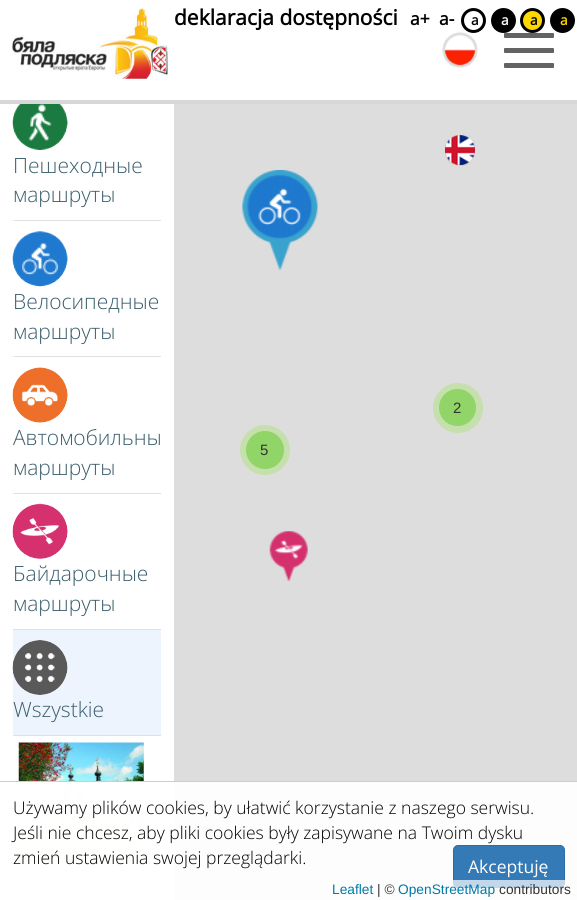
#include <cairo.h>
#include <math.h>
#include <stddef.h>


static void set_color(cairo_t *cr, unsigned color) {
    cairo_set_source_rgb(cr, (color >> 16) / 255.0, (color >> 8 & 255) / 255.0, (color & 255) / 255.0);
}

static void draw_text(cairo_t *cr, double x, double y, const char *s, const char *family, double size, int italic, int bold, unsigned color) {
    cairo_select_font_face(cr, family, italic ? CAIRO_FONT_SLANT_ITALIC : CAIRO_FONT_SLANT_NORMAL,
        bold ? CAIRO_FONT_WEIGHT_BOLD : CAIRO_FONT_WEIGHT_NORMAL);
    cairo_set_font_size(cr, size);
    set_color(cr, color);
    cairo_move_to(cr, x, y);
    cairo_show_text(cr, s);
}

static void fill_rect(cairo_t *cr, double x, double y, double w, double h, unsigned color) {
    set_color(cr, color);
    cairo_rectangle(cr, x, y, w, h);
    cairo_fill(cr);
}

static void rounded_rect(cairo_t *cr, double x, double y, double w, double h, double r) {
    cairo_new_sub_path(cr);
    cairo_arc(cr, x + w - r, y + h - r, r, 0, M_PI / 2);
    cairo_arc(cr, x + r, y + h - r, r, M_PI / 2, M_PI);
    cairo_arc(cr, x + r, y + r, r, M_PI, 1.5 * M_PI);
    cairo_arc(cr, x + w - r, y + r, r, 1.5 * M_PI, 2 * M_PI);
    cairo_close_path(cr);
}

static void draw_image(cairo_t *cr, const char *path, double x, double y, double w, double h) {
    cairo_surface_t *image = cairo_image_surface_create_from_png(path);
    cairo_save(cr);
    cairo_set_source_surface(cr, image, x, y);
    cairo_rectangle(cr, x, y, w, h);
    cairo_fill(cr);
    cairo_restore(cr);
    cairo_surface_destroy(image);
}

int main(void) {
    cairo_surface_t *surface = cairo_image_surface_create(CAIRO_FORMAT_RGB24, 577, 900);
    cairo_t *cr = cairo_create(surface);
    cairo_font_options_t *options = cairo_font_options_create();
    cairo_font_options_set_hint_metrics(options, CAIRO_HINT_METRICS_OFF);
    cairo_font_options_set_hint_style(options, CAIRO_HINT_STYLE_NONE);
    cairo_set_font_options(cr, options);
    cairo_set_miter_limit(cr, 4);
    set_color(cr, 0xFFFFFF);
    cairo_paint(cr);
    fill_rect(cr, 0, 100, 577, 4, 0xD7D7D7);
    draw_image(cr, "assets/img1.png", 12, 8, 156, 71);
    set_color(cr, 0x636363);
    rounded_rect(cr, 504, 33, 50, 5, 1);
    cairo_fill(cr);
    rounded_rect(cr, 504, 48, 50, 5, 1);
    cairo_fill(cr);
    rounded_rect(cr, 504, 63, 50, 5, 1);
    cairo_fill(cr);
    draw_image(cr, "assets/img2.png", 442, 32, 36, 36);
    fill_rect(cr, 174, 104, 403, 796, 0xDDDDDD);
    draw_image(cr, "assets/img3.png", 445, 135, 30, 31);
    draw_text(cr, 174, 25, "deklaracja dostępności", "Open Sans", 21, 0, 1, 0x000000);
    draw_text(cr, 410, 25, "a+", "Open Sans", 17.5, 0, 1, 0x000000);
    draw_text(cr, 439, 25, "a-", "Open Sans", 17.5, 0, 1, 0x000000);
    cairo_new_path(cr);
    cairo_arc(cr, 473.5, 20.5, 11, 0, 2 * M_PI);
    cairo_set_line_width(cr, 3);
    cairo_stroke(cr);
    draw_text(cr, 471, 25, "a", "Open Sans", 13.75, 0, 1, 0x000000);
    cairo_new_path(cr);
    cairo_arc(cr, 503.5, 20.5, 11, 0, 2 * M_PI);
    cairo_fill_preserve(cr);
    cairo_stroke(cr);
    draw_text(cr, 501, 25, "a", "Open Sans", 13.75, 0, 1, 0xFFFFFF);
    set_color(cr, 0xFFD800);
    cairo_new_path(cr);
    cairo_arc(cr, 532.5, 20.5, 11, 0, 2 * M_PI);
    cairo_fill_preserve(cr);
    set_color(cr, 0x000000);
    cairo_stroke(cr);
    draw_text(cr, 530, 25, "a", "Open Sans", 13.75, 0, 1, 0x000000);
    cairo_new_path(cr);
    cairo_arc(cr, 562.5, 20.5, 11, 0, 2 * M_PI);
    cairo_fill_preserve(cr);
    cairo_stroke(cr);
    draw_text(cr, 560, 25, "a", "Open Sans", 13.75, 0, 1, 0xFFD800);
    draw_image(cr, "assets/img4.png", 18, 742, 126, 126);
    cairo_set_source_rgba(cr, 1, 1, 1, 0.95);
    cairo_rectangle(cr, 18, 782, 126, 86);
    cairo_fill(cr);
    fill_rect(cr, 13, 630, 148, 105, 0xEEF4FE);
    fill_rect(cr, 13, 735, 148, 1, 0xE1E1E1);
    draw_image(cr, "assets/img5.png", 12, 640, 56, 55);
    draw_text(cr, 13, 717, "Wszystkie", "Open Sans Light", 21, 0, 0, 0x3B5E6C);
    fill_rect(cr, 13, 220, 148, 1, 0xE1E1E1);
    draw_image(cr, "assets/img6.png", 12, 104, 56, 46);
    draw_text(cr, 13, 173, "Пешеходные", "Open Sans Light", 21, 0, 0, 0x3B5E6C);
    draw_text(cr, 13, 202, "маршруты", "Open Sans Light", 21, 0, 0, 0x3B5E6C);
    fill_rect(cr, 13, 356, 148, 1, 0xE1E1E1);
    draw_image(cr, "assets/img7.png", 12, 231, 56, 56);
    draw_text(cr, 13, 309, "Велосипедные", "Open Sans Light", 21, 0, 0, 0x3B5E6C);
    draw_text(cr, 13, 339, "маршруты", "Open Sans Light", 21, 0, 0, 0x3B5E6C);
    fill_rect(cr, 13, 493, 148, 1, 0xE1E1E1);
    draw_image(cr, "assets/img8.png", 12, 367, 56, 56);
    draw_text(cr, 13, 445, "Автомобильны", "Open Sans Light", 21, 0, 0, 0x3B5E6C);
    draw_text(cr, 13, 475, "маршруты", "Open Sans Light", 21, 0, 0, 0x3B5E6C);
    fill_rect(cr, 13, 629, 148, 1, 0xE1E1E1);
    draw_image(cr, "assets/img9.png", 12, 503, 56, 56);
    draw_text(cr, 13, 581, "Байдарочные", "Open Sans Light", 21, 0, 0, 0x3B5E6C);
    draw_text(cr, 13, 611, "маршруты", "Open Sans Light", 21, 0, 0, 0x3B5E6C);
    draw_image(cr, "assets/img10.png", 242, 170, 77, 100);
    set_color(cr, 0xC5E0AC);
    cairo_arc(cr, 458, 408, 25, 0, 2 * M_PI);
    cairo_fill(cr);
    set_color(cr, 0x91D467);
    cairo_arc(cr, 457.5, 407.5, 18.5, 0, 2 * M_PI);
    cairo_fill(cr);
    draw_text(cr, 453, 413, "2", "Liberation Sans", 15, 0, 0, 0x333333);
    set_color(cr, 0xC5E0AC);
    cairo_new_path(cr);
    cairo_arc(cr, 265, 450, 25, 0, 2 * M_PI);
    cairo_fill(cr);
    set_color(cr, 0x91D467);
    cairo_arc(cr, 265, 450, 19, 0, 2 * M_PI);
    cairo_fill(cr);
    draw_text(cr, 260, 455, "5", "Liberation Sans", 15, 0, 0, 0x333333);
    draw_image(cr, "assets/img11.png", 269, 531, 39, 51);
    cairo_set_source_rgba(cr, 1, 1, 1, 0.95);
    cairo_rectangle(cr, 18, 782, 559, 118);
    cairo_fill(cr);
    set_color(cr, 0x337AB7);
    rounded_rect(cr, 453.5, 845.5, 111, 42, 4.5);
    cairo_fill_preserve(cr);
    set_color(cr, 0x2E6DA4);
    cairo_set_line_width(cr, 1);
    cairo_stroke(cr);
    cairo_set_source_rgba(cr, 1, 1, 1, 0.7);
    cairo_rectangle(cr, 453, 880, 112, 8);
    cairo_fill(cr);
    draw_text(cr, 332, 894, "Leaflet", "Liberation Sans", 13.75, 0, 0, 0x0078A8);
    draw_text(cr, 377, 894, "| ©", "Liberation Sans", 13.75, 0, 0, 0x333333);
    draw_text(cr, 398, 894, "OpenStreetMap", "Liberation Sans", 13.75, 0, 0, 0x0078A8);
    draw_text(cr, 499, 894, "contributors", "Liberation Sans", 13.75, 0, 0, 0x333333);
    fill_rect(cr, 0, 781, 577, 1, 0xCCCCCC);
    draw_text(cr, 13, 814, "Używamy plików cookies, by ułatwić korzystanie z naszego serwisu.", "Open Sans Light", 17.5, 0, 0, 0x000000);
    draw_text(cr, 13, 839, "Jeśli nie chcesz, aby pliki cookies były zapisywane na Twoim dysku", "Open Sans Light", 17.5, 0, 0, 0x000000);
    draw_text(cr, 13, 864, "zmień ustawienia swojej przeglądarki.", "Open Sans Light", 17.5, 0, 0, 0x000000);
    draw_text(cr, 468, 873, "Akceptuję", "Open Sans", 17.5, 0, 0, 0xFFFFFF);
    cairo_surface_write_to_png(surface, "output.png");
    cairo_font_options_destroy(options);
    cairo_destroy(cr);
    cairo_surface_destroy(surface);
    return 0;
}
